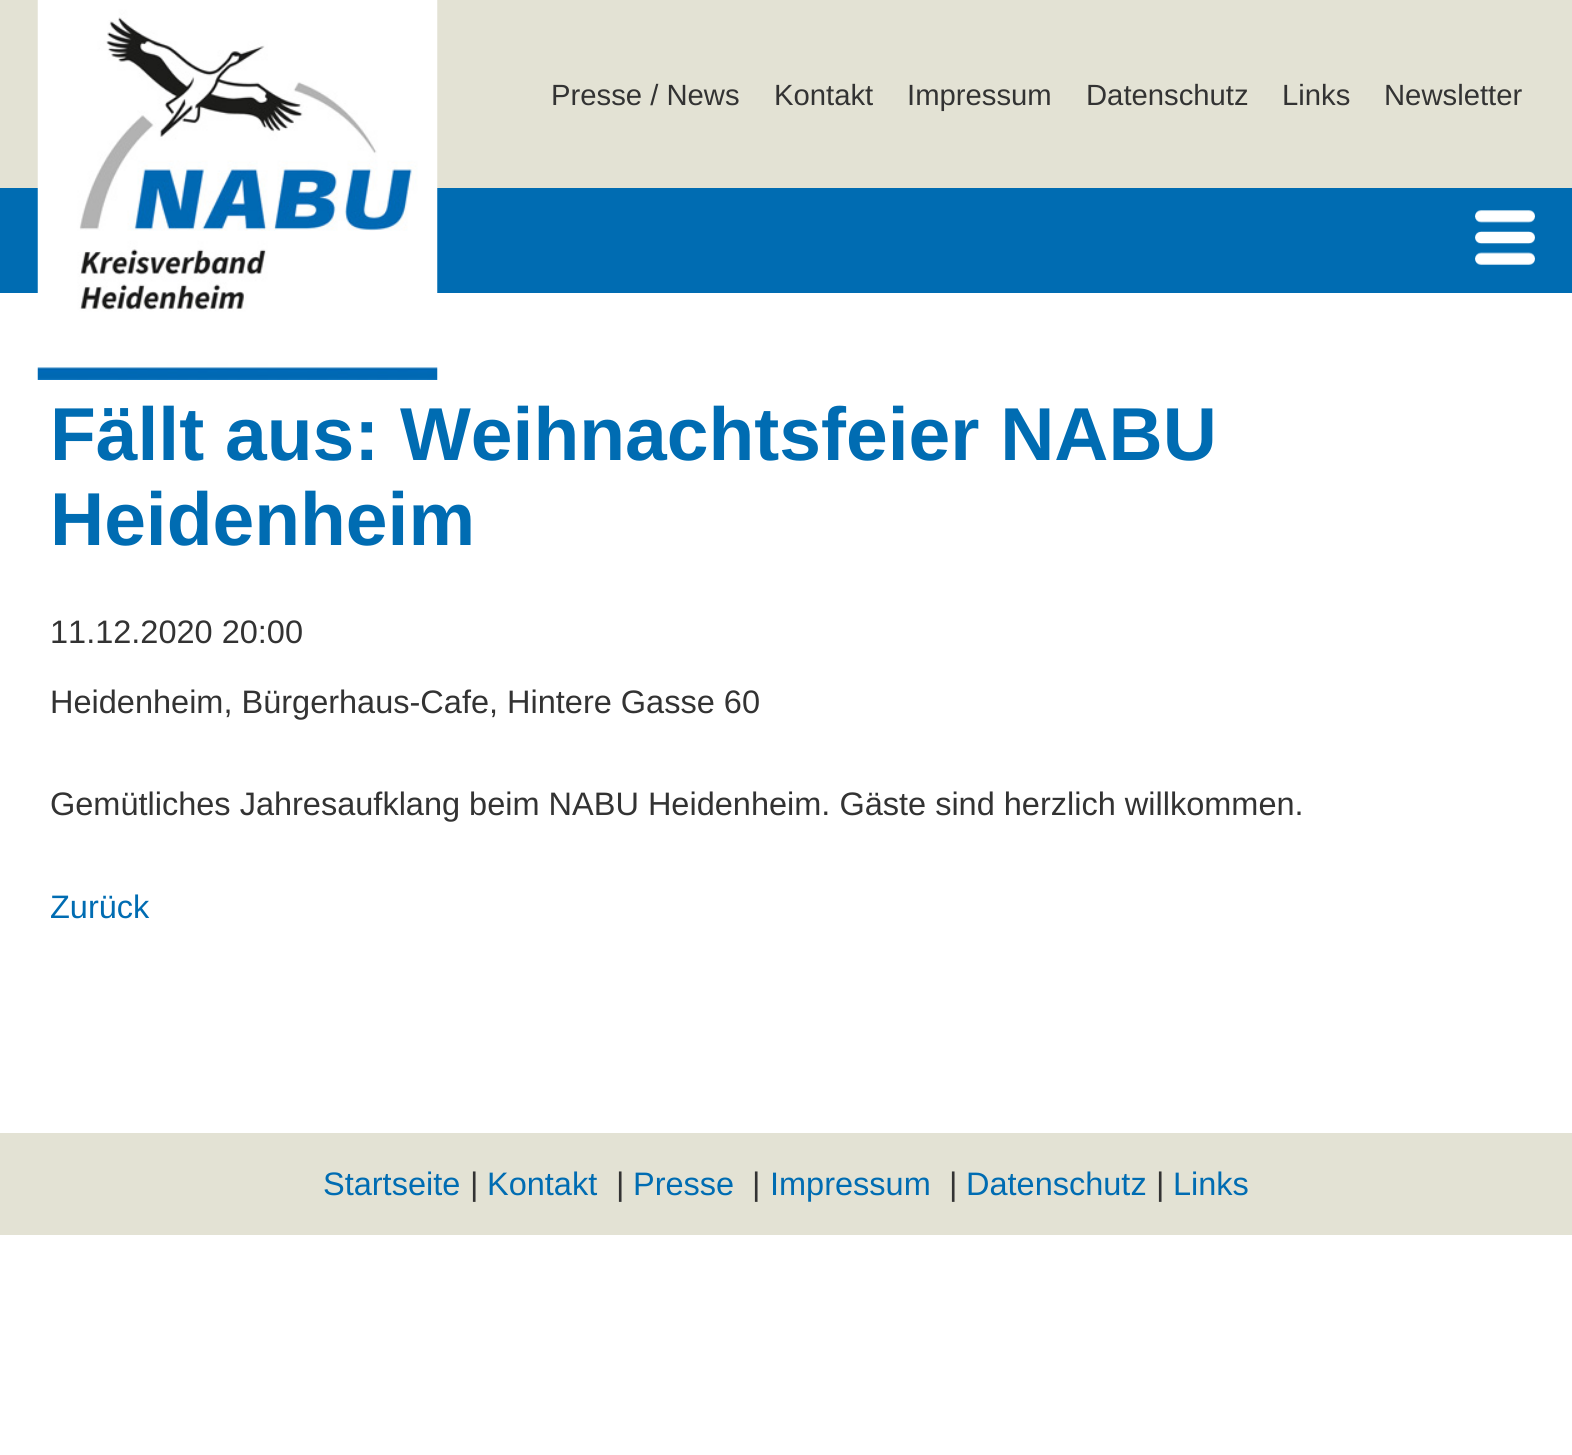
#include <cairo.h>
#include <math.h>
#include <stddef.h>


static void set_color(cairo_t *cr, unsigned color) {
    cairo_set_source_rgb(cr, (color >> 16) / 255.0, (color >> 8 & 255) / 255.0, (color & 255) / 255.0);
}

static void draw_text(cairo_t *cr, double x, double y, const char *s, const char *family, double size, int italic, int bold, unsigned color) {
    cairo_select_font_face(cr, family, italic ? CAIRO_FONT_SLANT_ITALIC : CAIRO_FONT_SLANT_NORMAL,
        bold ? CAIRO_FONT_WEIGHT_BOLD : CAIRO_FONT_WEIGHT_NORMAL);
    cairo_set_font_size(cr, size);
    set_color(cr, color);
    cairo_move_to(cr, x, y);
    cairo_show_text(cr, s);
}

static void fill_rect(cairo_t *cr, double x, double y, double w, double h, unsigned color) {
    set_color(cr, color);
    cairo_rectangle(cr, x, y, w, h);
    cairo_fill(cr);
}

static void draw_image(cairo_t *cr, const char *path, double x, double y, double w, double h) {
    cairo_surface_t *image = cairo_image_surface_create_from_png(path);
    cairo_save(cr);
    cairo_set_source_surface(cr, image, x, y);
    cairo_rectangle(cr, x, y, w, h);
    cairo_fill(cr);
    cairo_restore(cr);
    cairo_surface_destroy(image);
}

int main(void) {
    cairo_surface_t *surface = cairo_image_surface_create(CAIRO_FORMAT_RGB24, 1572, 1455);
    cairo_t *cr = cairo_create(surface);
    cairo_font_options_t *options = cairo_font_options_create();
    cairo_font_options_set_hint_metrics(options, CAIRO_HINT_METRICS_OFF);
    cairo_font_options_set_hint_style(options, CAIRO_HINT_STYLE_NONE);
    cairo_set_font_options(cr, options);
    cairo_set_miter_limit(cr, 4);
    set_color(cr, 0xFFFFFF);
    cairo_paint(cr);
    fill_rect(cr, 0, 0, 1572, 188, 0xE3E2D4);
    fill_rect(cr, 0, 188, 1572, 105, 0x006CB2);
    draw_image(cr, "assets/img1.png", 37, 0, 401, 380);
    draw_text(cr, 551, 105, "Presse / News", "Liberation Sans", 29.25, 0, 0, 0x333333);
    draw_text(cr, 774, 105, "Kontakt", "Liberation Sans", 29.25, 0, 0, 0x333333);
    draw_text(cr, 907, 105, "Impressum", "Liberation Sans", 29.25, 0, 0, 0x333333);
    draw_text(cr, 1086, 105, "Datenschutz", "Liberation Sans", 29.25, 0, 0, 0x333333);
    draw_text(cr, 1282, 105, "Links", "Liberation Sans", 29.25, 0, 0, 0x333333);
    draw_text(cr, 1384, 105, "Newsletter", "Liberation Sans", 29.25, 0, 0, 0x333333);
    draw_image(cr, "assets/img2.png", 1475, 210, 60, 55);
    draw_text(cr, 50, 460, "Fällt aus: Weihnachtsfeier NABU", "Liberation Sans", 75, 0, 1, 0x006CB2);
    draw_text(cr, 50, 545, "Heidenheim", "Liberation Sans", 75, 0, 1, 0x006CB2);
    draw_text(cr, 50, 643, "11.12.2020 20:00", "Liberation Sans", 32.5, 0, 0, 0x333333);
    draw_text(cr, 50, 713, "Heidenheim, Bürgerhaus-Cafe, Hintere Gasse 60", "Liberation Sans", 32.5, 0, 0, 0x333333);
    draw_text(cr, 50, 815, "Gemütliches Jahresaufklang beim NABU Heidenheim. Gäste sind herzlich willkommen.", "Liberation Sans", 32.5, 0, 0, 0x333333);
    draw_text(cr, 50, 918, "Zurück", "Liberation Sans", 32.5, 0, 0, 0x006CB2);
    fill_rect(cr, 0, 1133, 1572, 102, 0xE3E2D4);
    draw_text(cr, 323, 1195, "Startseite", "Liberation Sans", 32.5, 0, 0, 0x006CB2);
    draw_text(cr, 470, 1195, "|", "Liberation Sans", 32.5, 0, 0, 0x333333);
    draw_text(cr, 487, 1195, "Kontakt", "Liberation Sans", 32.5, 0, 0, 0x006CB2);
    draw_text(cr, 616, 1195, "|", "Liberation Sans", 32.5, 0, 0, 0x333333);
    draw_text(cr, 633, 1195, "Presse", "Liberation Sans", 32.5, 0, 0, 0x006CB2);
    draw_text(cr, 752, 1195, "|", "Liberation Sans", 32.5, 0, 0, 0x333333);
    draw_text(cr, 770, 1195, "Impressum", "Liberation Sans", 32.5, 0, 0, 0x006CB2);
    draw_text(cr, 949, 1195, "|", "Liberation Sans", 32.5, 0, 0, 0x333333);
    draw_text(cr, 966, 1195, "Datenschutz", "Liberation Sans", 32.5, 0, 0, 0x006CB2);
    draw_text(cr, 1156, 1195, "|", "Liberation Sans", 32.5, 0, 0, 0x333333);
    draw_text(cr, 1173, 1195, "Links", "Liberation Sans", 32.5, 0, 0, 0x006CB2);
    cairo_surface_write_to_png(surface, "output.png");
    cairo_font_options_destroy(options);
    cairo_destroy(cr);
    cairo_surface_destroy(surface);
    return 0;
}
